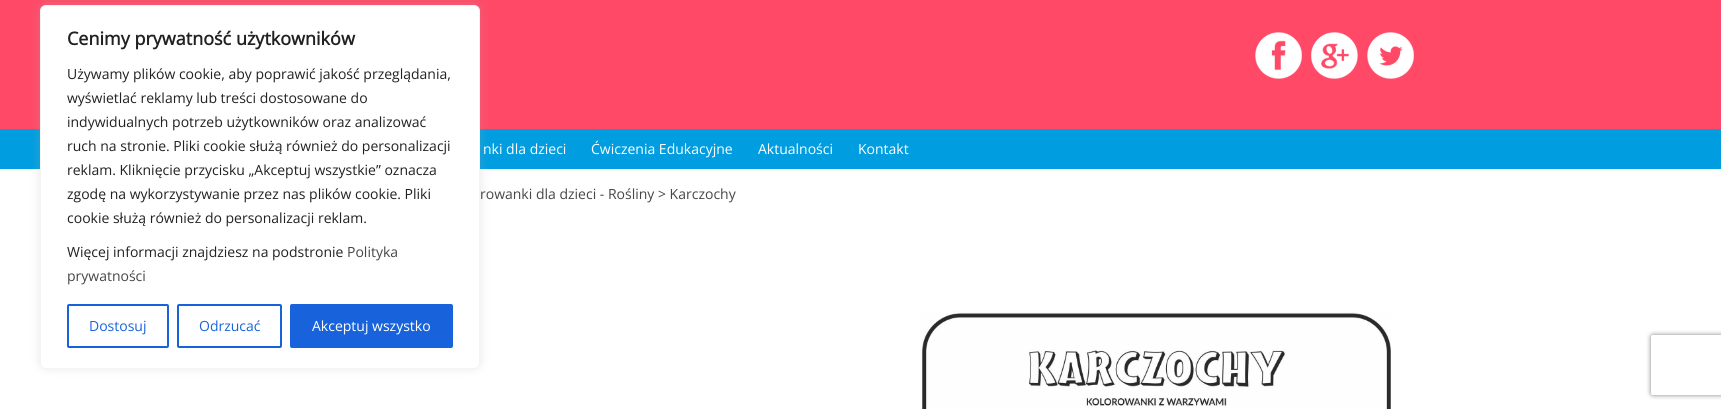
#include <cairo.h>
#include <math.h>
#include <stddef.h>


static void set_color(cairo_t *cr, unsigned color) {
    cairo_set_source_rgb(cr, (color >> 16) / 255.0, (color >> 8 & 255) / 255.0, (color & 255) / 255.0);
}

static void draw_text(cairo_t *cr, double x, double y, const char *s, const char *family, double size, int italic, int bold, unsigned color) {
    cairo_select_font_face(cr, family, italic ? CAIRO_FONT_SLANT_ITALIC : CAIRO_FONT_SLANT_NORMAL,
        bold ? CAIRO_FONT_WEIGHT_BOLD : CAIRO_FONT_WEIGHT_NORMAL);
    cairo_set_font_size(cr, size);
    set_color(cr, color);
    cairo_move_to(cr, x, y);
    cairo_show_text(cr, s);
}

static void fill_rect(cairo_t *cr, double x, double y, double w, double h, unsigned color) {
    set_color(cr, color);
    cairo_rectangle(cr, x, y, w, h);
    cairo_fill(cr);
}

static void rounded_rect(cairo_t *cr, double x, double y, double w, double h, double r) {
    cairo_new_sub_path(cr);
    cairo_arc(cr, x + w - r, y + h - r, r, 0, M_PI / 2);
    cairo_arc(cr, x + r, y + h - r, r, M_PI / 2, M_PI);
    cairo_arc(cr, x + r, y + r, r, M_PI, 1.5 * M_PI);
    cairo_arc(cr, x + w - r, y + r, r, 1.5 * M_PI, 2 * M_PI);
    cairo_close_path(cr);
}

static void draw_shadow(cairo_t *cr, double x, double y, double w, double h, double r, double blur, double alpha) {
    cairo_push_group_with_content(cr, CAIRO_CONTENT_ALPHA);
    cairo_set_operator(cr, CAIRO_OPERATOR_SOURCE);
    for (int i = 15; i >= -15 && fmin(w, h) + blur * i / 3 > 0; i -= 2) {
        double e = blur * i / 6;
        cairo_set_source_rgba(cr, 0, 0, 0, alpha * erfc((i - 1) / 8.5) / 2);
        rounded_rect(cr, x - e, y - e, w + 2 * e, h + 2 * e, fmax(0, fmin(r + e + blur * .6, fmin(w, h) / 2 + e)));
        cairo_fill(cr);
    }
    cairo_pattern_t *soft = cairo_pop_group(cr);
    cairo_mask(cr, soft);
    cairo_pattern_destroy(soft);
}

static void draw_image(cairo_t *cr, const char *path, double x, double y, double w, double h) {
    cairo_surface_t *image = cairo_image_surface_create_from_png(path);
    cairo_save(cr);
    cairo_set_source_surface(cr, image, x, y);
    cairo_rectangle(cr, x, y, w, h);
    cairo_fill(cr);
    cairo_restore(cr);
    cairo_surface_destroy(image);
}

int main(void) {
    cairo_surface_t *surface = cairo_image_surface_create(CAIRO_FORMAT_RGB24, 1721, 409);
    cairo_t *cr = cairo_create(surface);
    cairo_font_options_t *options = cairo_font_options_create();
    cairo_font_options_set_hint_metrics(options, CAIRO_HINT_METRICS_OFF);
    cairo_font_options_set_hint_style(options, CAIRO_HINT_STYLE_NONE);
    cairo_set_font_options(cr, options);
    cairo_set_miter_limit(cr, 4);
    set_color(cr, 0xFFFFFF);
    cairo_paint(cr);
    fill_rect(cr, 0, 0, 1721, 129, 0xFF4967);
    fill_rect(cr, 0, 129, 1721, 40, 0x009DE0);
    set_color(cr, 0xACABAB);
    draw_shadow(cr, 40, 4, 440, 364, 6, 5, 0.3);
    set_color(cr, 0xFFFFFF);
    rounded_rect(cr, 40.5, 5.5, 439, 363, 5.5);
    cairo_fill_preserve(cr);
    set_color(cr, 0xF4F4F4);
    cairo_set_line_width(cr, 1);
    cairo_stroke(cr);
    draw_text(cr, 67, 45, "Cenimy prywatność użytkowników", "Open Sans", 18, 0, 1, 0x212121);
    draw_text(cr, 67, 79, "Używamy plików cookie, aby poprawić jakość przeglądania,", "Open Sans", 14, 0, 0, 0x212121);
    draw_text(cr, 67, 103, "wyświetlać reklamy lub treści dostosowane do", "Open Sans", 14, 0, 0, 0x212121);
    draw_text(cr, 67, 127, "indywidualnych potrzeb użytkowników oraz analizować", "Open Sans", 14, 0, 0, 0x212121);
    draw_text(cr, 67, 151, "ruch na stronie. Pliki cookie służą również do personalizacji", "Open Sans", 14, 0, 0, 0x212121);
    draw_text(cr, 67, 175, "reklam. Kliknięcie przycisku „Akceptuj wszystkie” oznacza", "Open Sans", 14, 0, 0, 0x212121);
    draw_text(cr, 67, 199, "zgodę na wykorzystywanie przez nas plików cookie. Pliki", "Open Sans", 14, 0, 0, 0x212121);
    draw_text(cr, 67, 223, "cookie służą również do personalizacji reklam.", "Open Sans", 14, 0, 0, 0x212121);
    draw_text(cr, 67, 257, "Więcej informacji znajdziesz na podstronie", "Open Sans", 14, 0, 0, 0x212121);
    draw_text(cr, 347, 257, "Polityka", "Open Sans", 14, 0, 0, 0x464646);
    draw_text(cr, 67, 281, "prywatności", "Open Sans", 14, 0, 0, 0x464646);
    rounded_rect(cr, 68, 305, 100, 42, 1);
    set_color(cr, 0x1863DC);
    cairo_set_line_width(cr, 2);
    cairo_stroke(cr);
    draw_text(cr, 89, 331, "Dostosuj", "Open Sans", 14, 0, 0, 0x1863DC);
    rounded_rect(cr, 178, 305, 103, 42, 1);
    cairo_stroke(cr);
    draw_text(cr, 199, 331, "Odrzucać", "Open Sans", 14, 0, 0, 0x1863DC);
    rounded_rect(cr, 291, 305, 161, 42, 1);
    cairo_fill_preserve(cr);
    cairo_stroke(cr);
    draw_text(cr, 312, 331, "Akceptuj wszystko", "Open Sans", 14, 0, 0, 0xFFFFFF);
    draw_image(cr, "assets/img1.png", 1255, 32, 47, 47);
    draw_image(cr, "assets/img2.png", 1311, 32, 47, 47);
    draw_image(cr, "assets/img3.png", 1367, 32, 47, 47);
    draw_text(cr, 483, 154, "nki dla dzieci", "Open Sans", 14, 0, 0, 0xFFFFFF);
    draw_text(cr, 591, 154, "Ćwiczenia Edukacyjne", "Open Sans", 14, 0, 0, 0xFFFFFF);
    draw_text(cr, 758, 154, "Aktualności", "Open Sans", 14, 0, 0, 0xFFFFFF);
    draw_text(cr, 858, 154, "Kontakt", "Open Sans", 14, 0, 0, 0xFFFFFF);
    draw_text(cr, 480, 199, "rowanki dla dzieci - Rośliny > Karczochy", "Open Sans", 14, 0, 0, 0x464646);
    draw_image(cr, "assets/img4.png", 921, 311, 470, 98);
    cairo_save(cr);
    cairo_set_fill_rule(cr, CAIRO_FILL_RULE_EVEN_ODD);
    cairo_new_path(cr);
    cairo_move_to(cr, 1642, 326);
    cairo_line_to(cr, 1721, 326);
    cairo_line_to(cr, 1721, 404);
    cairo_line_to(cr, 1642, 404);
    cairo_close_path(cr);
    cairo_move_to(cr, 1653, 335);
    cairo_line_to(cr, 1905, 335);
    cairo_curve_to(cr, 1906, 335, 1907, 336, 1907, 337);
    cairo_line_to(cr, 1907, 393);
    cairo_curve_to(cr, 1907, 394, 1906, 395, 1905, 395);
    cairo_line_to(cr, 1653, 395);
    cairo_curve_to(cr, 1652, 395, 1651, 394, 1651, 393);
    cairo_line_to(cr, 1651, 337);
    cairo_curve_to(cr, 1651, 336, 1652, 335, 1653, 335);
    cairo_close_path(cr);
    cairo_clip(cr);
    set_color(cr, 0x808080);
    draw_shadow(cr, 1651, 335, 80, 60, 2, 2.5, 1);
    cairo_restore(cr);
    cairo_surface_write_to_png(surface, "output.png");
    cairo_font_options_destroy(options);
    cairo_destroy(cr);
    cairo_surface_destroy(surface);
    return 0;
}
